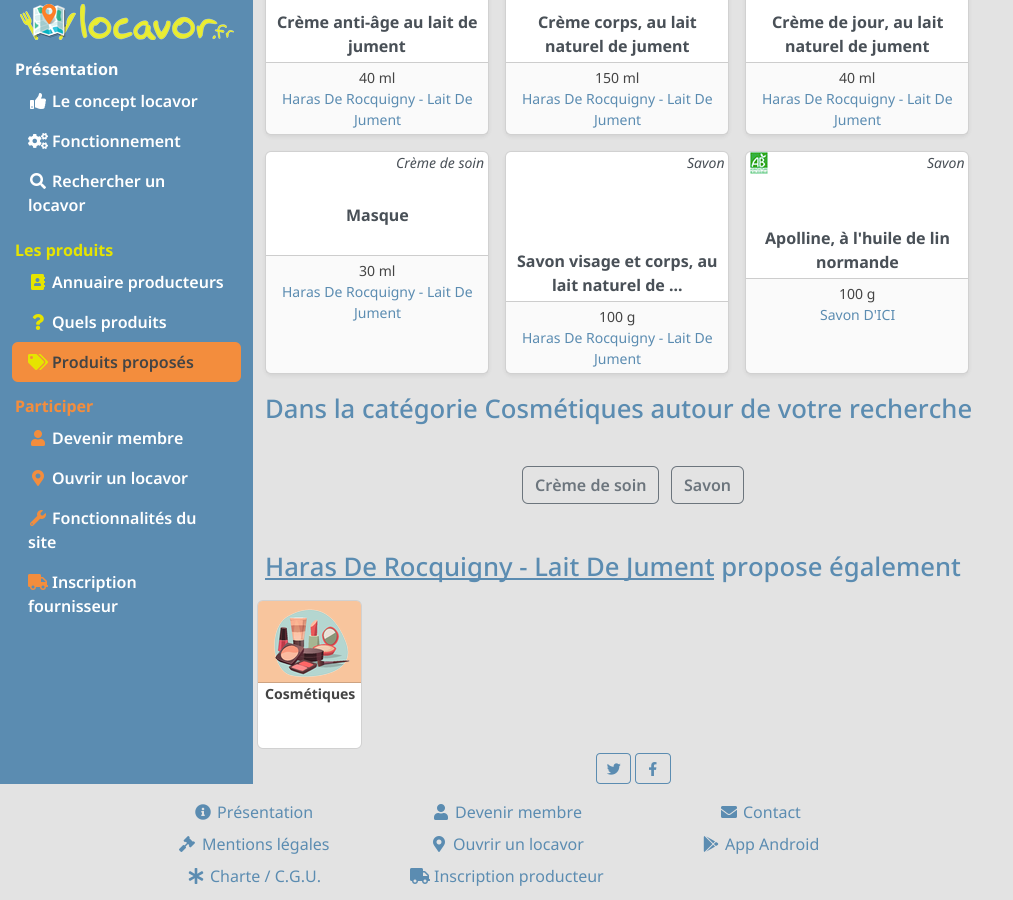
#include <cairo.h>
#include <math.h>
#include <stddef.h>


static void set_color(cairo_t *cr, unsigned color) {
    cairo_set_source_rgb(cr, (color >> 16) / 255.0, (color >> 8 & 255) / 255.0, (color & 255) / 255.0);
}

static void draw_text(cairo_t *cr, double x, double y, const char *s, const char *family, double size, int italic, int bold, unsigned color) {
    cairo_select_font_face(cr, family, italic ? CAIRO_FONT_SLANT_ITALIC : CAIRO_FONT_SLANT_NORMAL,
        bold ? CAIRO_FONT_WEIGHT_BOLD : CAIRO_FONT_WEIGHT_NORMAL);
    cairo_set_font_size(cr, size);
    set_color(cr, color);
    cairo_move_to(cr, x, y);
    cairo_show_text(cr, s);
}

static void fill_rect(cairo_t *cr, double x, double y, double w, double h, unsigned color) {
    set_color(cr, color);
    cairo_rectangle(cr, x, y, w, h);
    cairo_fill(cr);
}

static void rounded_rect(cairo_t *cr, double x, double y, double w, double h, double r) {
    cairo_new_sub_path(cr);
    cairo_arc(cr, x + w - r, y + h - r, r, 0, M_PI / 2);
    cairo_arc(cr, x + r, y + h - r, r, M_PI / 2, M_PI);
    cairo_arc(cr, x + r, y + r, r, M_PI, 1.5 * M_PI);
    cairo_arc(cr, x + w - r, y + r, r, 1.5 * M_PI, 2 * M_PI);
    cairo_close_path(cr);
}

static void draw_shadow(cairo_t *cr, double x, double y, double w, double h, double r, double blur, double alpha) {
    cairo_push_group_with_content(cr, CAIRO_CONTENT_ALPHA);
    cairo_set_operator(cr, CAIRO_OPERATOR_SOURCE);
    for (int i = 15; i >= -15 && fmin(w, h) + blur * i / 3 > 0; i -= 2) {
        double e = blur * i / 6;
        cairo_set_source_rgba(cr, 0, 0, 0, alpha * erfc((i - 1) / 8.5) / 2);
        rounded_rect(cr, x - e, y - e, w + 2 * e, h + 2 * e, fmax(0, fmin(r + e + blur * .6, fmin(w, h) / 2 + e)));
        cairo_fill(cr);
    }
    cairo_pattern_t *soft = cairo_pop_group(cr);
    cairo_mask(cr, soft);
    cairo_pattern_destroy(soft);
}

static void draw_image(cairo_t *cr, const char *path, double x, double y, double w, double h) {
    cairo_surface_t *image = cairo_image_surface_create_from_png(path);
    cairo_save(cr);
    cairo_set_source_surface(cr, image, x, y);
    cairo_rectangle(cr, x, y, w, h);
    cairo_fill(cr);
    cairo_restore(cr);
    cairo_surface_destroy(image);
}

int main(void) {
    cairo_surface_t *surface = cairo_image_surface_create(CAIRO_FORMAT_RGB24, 1013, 900);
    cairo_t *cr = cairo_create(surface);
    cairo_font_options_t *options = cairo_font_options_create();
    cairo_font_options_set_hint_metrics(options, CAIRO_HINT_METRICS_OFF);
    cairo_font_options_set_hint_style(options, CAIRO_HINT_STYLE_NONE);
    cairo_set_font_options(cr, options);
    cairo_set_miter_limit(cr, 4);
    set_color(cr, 0xE3E3E3);
    cairo_paint(cr);
    fill_rect(cr, 0, 0, 253, 784, 0x5B8CB1);
    draw_image(cr, "assets/img1.png", 20, 4, 56, 36);
    draw_image(cr, "assets/img2.png", 80, 4, 154, 36);
    draw_text(cr, 15, 75, "Présentation", "Noto Sans", 16, 0, 1, 0xFFFFFF);
    draw_image(cr, "assets/img3.png", 30, 93, 16, 16);
    draw_text(cr, 52, 107, "Le concept locavor", "Noto Sans SemiBold", 16, 0, 0, 0xFFFFFF);
    draw_image(cr, "assets/img4.png", 28, 133, 20, 16);
    draw_text(cr, 52, 147, "Fonctionnement", "Noto Sans SemiBold", 16, 0, 0, 0xFFFFFF);
    draw_image(cr, "assets/img5.png", 30, 173, 16, 16);
    draw_text(cr, 52, 187, "Rechercher un", "Noto Sans SemiBold", 16, 0, 0, 0xFFFFFF);
    draw_text(cr, 28, 211, "locavor", "Noto Sans SemiBold", 16, 0, 0, 0xFFFFFF);
    draw_text(cr, 15, 256, "Les produits", "Noto Sans", 16, 0, 1, 0xE6E400);
    draw_image(cr, "assets/img6.png", 31, 274, 14, 16);
    draw_text(cr, 52, 288, "Annuaire producteurs", "Noto Sans SemiBold", 16, 0, 0, 0xFFFFFF);
    draw_image(cr, "assets/img7.png", 32, 314, 12, 16);
    draw_text(cr, 52, 328, "Quels produits", "Noto Sans SemiBold", 16, 0, 0, 0xFFFFFF);
    set_color(cr, 0xF38D3D);
    rounded_rect(cr, 12, 342, 229, 40, 6);
    cairo_fill(cr);
    draw_image(cr, "assets/img8.png", 28, 354, 20, 16);
    draw_text(cr, 52, 368, "Produits proposés", "Noto Sans SemiBold", 16, 0, 0, 0x444444);
    draw_text(cr, 15, 412, "Participer", "Noto Sans", 16, 0, 1, 0xF38D3D);
    draw_image(cr, "assets/img9.png", 31, 430, 14, 16);
    draw_text(cr, 52, 444, "Devenir membre", "Noto Sans SemiBold", 16, 0, 0, 0xFFFFFF);
    draw_image(cr, "assets/img10.png", 32, 470, 12, 16);
    draw_text(cr, 52, 484, "Ouvrir un locavor", "Noto Sans SemiBold", 16, 0, 0, 0xFFFFFF);
    draw_image(cr, "assets/img11.png", 30, 510, 16, 16);
    draw_text(cr, 52, 524, "Fonctionnalités du", "Noto Sans SemiBold", 16, 0, 0, 0xFFFFFF);
    draw_text(cr, 28, 548, "site", "Noto Sans SemiBold", 16, 0, 0, 0xFFFFFF);
    draw_image(cr, "assets/img12.png", 28, 574, 20, 16);
    draw_text(cr, 52, 588, "Inscription", "Noto Sans SemiBold", 16, 0, 0, 0xFFFFFF);
    draw_text(cr, 28, 612, "fournisseur", "Noto Sans SemiBold", 16, 0, 0, 0xFFFFFF);
    set_color(cr, 0x000000);
    draw_shadow(cr, 265, -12, 224, 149, 6, 2, 0.07);
    set_color(cr, 0xFFFFFF);
    rounded_rect(cr, 265, -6, 224, 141, 6);
    cairo_fill(cr);
    rounded_rect(cr, 265.5, -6.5, 223, 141, 5.5);
    cairo_set_source_rgba(cr, 0, 0, 0, 0.18);
    cairo_set_line_width(cr, 1);
    cairo_stroke(cr);
    draw_text(cr, 277, 28, "Crème anti-âge au lait de", "Noto Sans", 16, 0, 1, 0x495057);
    draw_text(cr, 348, 52, "jument", "Noto Sans", 16, 0, 1, 0x495057);
    cairo_set_source_rgba(cr, 0.267, 0.267, 0.267, 0.03);
    cairo_rectangle(cr, 266, 63, 222, 71);
    cairo_fill(cr);
    fill_rect(cr, 266, 62, 222, 1, 0xCDCDCD);
    draw_text(cr, 359, 83, "40 ml", "Noto Sans", 14, 0, 0, 0x444444);
    draw_text(cr, 282, 104, "Haras De Rocquigny - Lait De", "Noto Sans", 14, 0, 0, 0x5B8CB1);
    draw_text(cr, 354, 125, "Jument", "Noto Sans", 14, 0, 0, 0x5B8CB1);
    set_color(cr, 0x000000);
    draw_shadow(cr, 505, -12, 224, 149, 6, 2, 0.07);
    set_color(cr, 0xFFFFFF);
    rounded_rect(cr, 505, -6, 224, 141, 6);
    cairo_fill(cr);
    rounded_rect(cr, 505.5, -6.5, 223, 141, 5.5);
    cairo_set_source_rgba(cr, 0, 0, 0, 0.18);
    cairo_stroke(cr);
    draw_text(cr, 538, 28, "Crème corps, au lait", "Noto Sans", 16, 0, 1, 0x495057);
    draw_text(cr, 545, 52, "naturel de jument", "Noto Sans", 16, 0, 1, 0x495057);
    cairo_set_source_rgba(cr, 0.267, 0.267, 0.267, 0.03);
    cairo_rectangle(cr, 506, 63, 222, 71);
    cairo_fill(cr);
    fill_rect(cr, 506, 62, 222, 1, 0xCDCDCD);
    draw_text(cr, 595, 83, "150 ml", "Noto Sans", 14, 0, 0, 0x444444);
    draw_text(cr, 522, 104, "Haras De Rocquigny - Lait De", "Noto Sans", 14, 0, 0, 0x5B8CB1);
    draw_text(cr, 594, 125, "Jument", "Noto Sans", 14, 0, 0, 0x5B8CB1);
    set_color(cr, 0x000000);
    draw_shadow(cr, 745, -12, 224, 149, 6, 2, 0.07);
    set_color(cr, 0xFFFFFF);
    rounded_rect(cr, 745, -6, 224, 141, 6);
    cairo_fill(cr);
    rounded_rect(cr, 745.5, -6.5, 223, 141, 5.5);
    cairo_set_source_rgba(cr, 0, 0, 0, 0.18);
    cairo_stroke(cr);
    draw_text(cr, 772, 28, "Crème de jour, au lait", "Noto Sans", 16, 0, 1, 0x495057);
    draw_text(cr, 785, 52, "naturel de jument", "Noto Sans", 16, 0, 1, 0x495057);
    cairo_set_source_rgba(cr, 0.267, 0.267, 0.267, 0.03);
    cairo_rectangle(cr, 746, 63, 222, 71);
    cairo_fill(cr);
    fill_rect(cr, 746, 62, 222, 1, 0xCDCDCD);
    draw_text(cr, 839, 83, "40 ml", "Noto Sans", 14, 0, 0, 0x444444);
    draw_text(cr, 762, 104, "Haras De Rocquigny - Lait De", "Noto Sans", 14, 0, 0, 0x5B8CB1);
    draw_text(cr, 834, 125, "Jument", "Noto Sans", 14, 0, 0, 0x5B8CB1);
    set_color(cr, 0x000000);
    draw_shadow(cr, 265, 153, 224, 223, 6, 2, 0.07);
    set_color(cr, 0xFFFFFF);
    rounded_rect(cr, 265, 151, 224, 223, 6);
    cairo_fill(cr);
    rounded_rect(cr, 265.5, 151.5, 223, 222, 5.5);
    cairo_set_source_rgba(cr, 0, 0, 0, 0.18);
    cairo_stroke(cr);
    draw_text(cr, 396, 168, "Crème de soin", "Noto Sans", 14, 1, 0, 0x495057);
    draw_text(cr, 346, 221, "Masque", "Noto Sans", 16, 0, 1, 0x495057);
    cairo_set_source_rgba(cr, 0.267, 0.267, 0.267, 0.03);
    cairo_rectangle(cr, 266, 256, 222, 117);
    cairo_fill(cr);
    fill_rect(cr, 266, 255, 222, 1, 0xCDCDCD);
    draw_text(cr, 359, 276, "30 ml", "Noto Sans", 14, 0, 0, 0x444444);
    draw_text(cr, 282, 297, "Haras De Rocquigny - Lait De", "Noto Sans", 14, 0, 0, 0x5B8CB1);
    draw_text(cr, 354, 318, "Jument", "Noto Sans", 14, 0, 0, 0x5B8CB1);
    set_color(cr, 0x000000);
    draw_shadow(cr, 505, 153, 224, 223, 6, 2, 0.07);
    set_color(cr, 0xFFFFFF);
    rounded_rect(cr, 505, 151, 224, 223, 6);
    cairo_fill(cr);
    rounded_rect(cr, 505.5, 151.5, 223, 222, 5.5);
    cairo_set_source_rgba(cr, 0, 0, 0, 0.18);
    cairo_stroke(cr);
    draw_text(cr, 687, 168, "Savon", "Noto Sans", 14, 1, 0, 0x495057);
    draw_text(cr, 517, 267, "Savon visage et corps, au", "Noto Sans", 16, 0, 1, 0x495057);
    draw_text(cr, 552, 291, "lait naturel de ...", "Noto Sans", 16, 0, 1, 0x495057);
    cairo_set_source_rgba(cr, 0.267, 0.267, 0.267, 0.03);
    cairo_rectangle(cr, 506, 302, 222, 71);
    cairo_fill(cr);
    fill_rect(cr, 506, 301, 222, 1, 0xCDCDCD);
    draw_text(cr, 599, 322, "100 g", "Noto Sans", 14, 0, 0, 0x444444);
    draw_text(cr, 522, 343, "Haras De Rocquigny - Lait De", "Noto Sans", 14, 0, 0, 0x5B8CB1);
    draw_text(cr, 594, 364, "Jument", "Noto Sans", 14, 0, 0, 0x5B8CB1);
    set_color(cr, 0x000000);
    draw_shadow(cr, 745, 153, 224, 223, 6, 2, 0.07);
    set_color(cr, 0xFFFFFF);
    rounded_rect(cr, 745, 151, 224, 223, 6);
    cairo_fill(cr);
    rounded_rect(cr, 745.5, 151.5, 223, 222, 5.5);
    cairo_set_source_rgba(cr, 0, 0, 0, 0.18);
    cairo_stroke(cr);
    draw_image(cr, "assets/img13.png", 750, 152, 18, 22);
    draw_text(cr, 927, 168, "Savon", "Noto Sans", 14, 1, 0, 0x495057);
    draw_text(cr, 765, 244, "Apolline, à l'huile de lin", "Noto Sans", 16, 0, 1, 0x495057);
    draw_text(cr, 816, 268, "normande", "Noto Sans", 16, 0, 1, 0x495057);
    cairo_set_source_rgba(cr, 0.267, 0.267, 0.267, 0.03);
    cairo_rectangle(cr, 746, 279, 222, 94);
    cairo_fill(cr);
    fill_rect(cr, 746, 278, 222, 1, 0xCDCDCD);
    draw_text(cr, 839, 299, "100 g", "Noto Sans", 14, 0, 0, 0x444444);
    draw_text(cr, 820, 320, "Savon D'ICI", "Noto Sans", 14, 0, 0, 0x5B8CB1);
    draw_text(cr, 265, 418, "Dans la catégorie Cosmétiques autour de votre recherche", "Noto Sans Medium", 25.65, 0, 0, 0x5B8CB1);
    rounded_rect(cr, 522.5, 466.5, 136, 37, 5.5);
    set_color(cr, 0x6C757D);
    cairo_stroke(cr);
    draw_text(cr, 535, 491, "Crème de soin", "Noto Sans SemiBold", 16, 0, 0, 0x6C757D);
    rounded_rect(cr, 671.5, 466.5, 72, 37, 5.5);
    cairo_stroke(cr);
    draw_text(cr, 684, 491, "Savon", "Noto Sans SemiBold", 16, 0, 0, 0x6C757D);
    fill_rect(cr, 265, 578, 449, 2, 0x5B8CB1);
    draw_text(cr, 265, 576, "Haras De Rocquigny - Lait De Jument propose également", "Noto Sans Medium", 25.65, 0, 0, 0x5B8CB1);
    set_color(cr, 0xFFFFFF);
    rounded_rect(cr, 257, 600, 105, 149, 6);
    cairo_fill(cr);
    rounded_rect(cr, 257.5, 600.5, 104, 148, 5.5);
    cairo_set_source_rgba(cr, 0, 0, 0, 0.18);
    cairo_stroke(cr);
    cairo_set_source_rgba(cr, 0.953, 0.553, 0.239, 0.5);
    cairo_new_path(cr);
    cairo_move_to(cr, 263, 601);
    cairo_line_to(cr, 356, 601);
    cairo_curve_to(cr, 359, 601, 361, 603, 361, 606);
    cairo_line_to(cr, 361, 683);
    cairo_line_to(cr, 258, 683);
    cairo_line_to(cr, 258, 606);
    cairo_curve_to(cr, 258, 603, 260, 601, 263, 601);
    cairo_close_path(cr);
    cairo_fill(cr);
    fill_rect(cr, 258, 682, 103, 1, 0xCDA382);
    draw_image(cr, "assets/img14.png", 274, 609, 76, 68);
    draw_text(cr, 265, 699, "Cosmétiques", "Noto Sans", 14, 0, 1, 0x444444);
    rounded_rect(cr, 596.5, 753.5, 34, 30, 3.5);
    set_color(cr, 0x5B8CB1);
    cairo_stroke(cr);
    draw_image(cr, "assets/img15.png", 607, 763, 14, 12);
    rounded_rect(cr, 635.5, 753.5, 35, 30, 3.5);
    cairo_stroke(cr);
    draw_image(cr, "assets/img16.png", 649, 762, 8, 14);
    draw_image(cr, "assets/img17.png", 195, 804, 16, 16);
    draw_text(cr, 217, 818, "Présentation", "Noto Sans", 16, 0, 0, 0x5B8CB1);
    draw_image(cr, "assets/img18.png", 179, 836, 16, 16);
    draw_text(cr, 202, 850, "Mentions légales", "Noto Sans", 16, 0, 0, 0x5B8CB1);
    draw_image(cr, "assets/img19.png", 188, 868, 16, 16);
    draw_text(cr, 210, 882, "Charte / C.G.U.", "Noto Sans", 16, 0, 0, 0x5B8CB1);
    draw_image(cr, "assets/img20.png", 434, 804, 14, 16);
    draw_text(cr, 455, 818, "Devenir membre", "Noto Sans", 16, 0, 0, 0x5B8CB1);
    draw_image(cr, "assets/img21.png", 433, 836, 12, 16);
    draw_text(cr, 453, 850, "Ouvrir un locavor", "Noto Sans", 16, 0, 0, 0x5B8CB1);
    draw_image(cr, "assets/img22.png", 410, 868, 20, 16);
    draw_text(cr, 434, 882, "Inscription producteur", "Noto Sans", 16, 0, 0, 0x5B8CB1);
    draw_image(cr, "assets/img23.png", 721, 806, 16, 12);
    draw_text(cr, 743, 818, "Contact", "Noto Sans", 16, 0, 0, 0x5B8CB1);
    draw_image(cr, "assets/img24.png", 703, 836, 16, 16);
    draw_text(cr, 725, 850, "App Android", "Noto Sans", 16, 0, 0, 0x5B8CB1);
    cairo_surface_write_to_png(surface, "output.png");
    cairo_font_options_destroy(options);
    cairo_destroy(cr);
    cairo_surface_destroy(surface);
    return 0;
}
